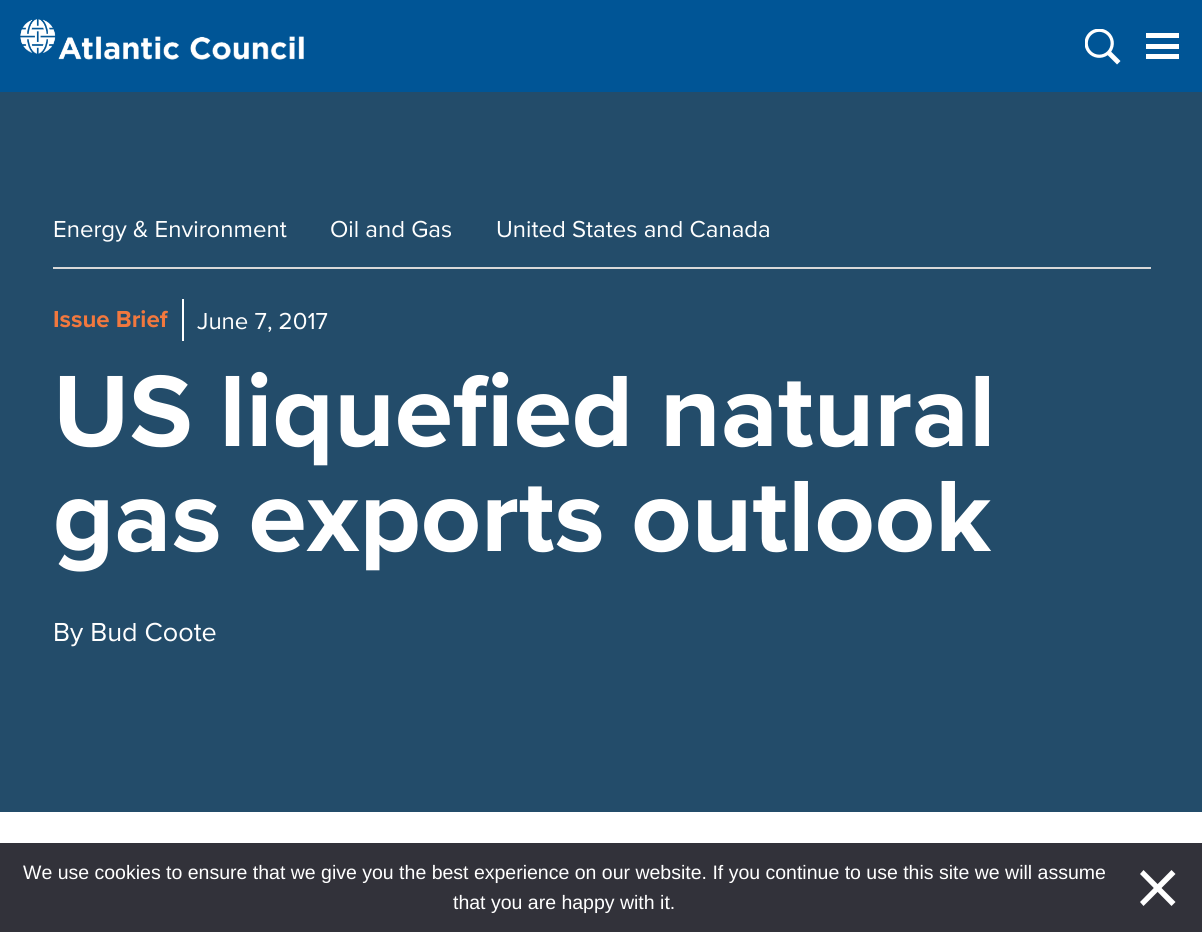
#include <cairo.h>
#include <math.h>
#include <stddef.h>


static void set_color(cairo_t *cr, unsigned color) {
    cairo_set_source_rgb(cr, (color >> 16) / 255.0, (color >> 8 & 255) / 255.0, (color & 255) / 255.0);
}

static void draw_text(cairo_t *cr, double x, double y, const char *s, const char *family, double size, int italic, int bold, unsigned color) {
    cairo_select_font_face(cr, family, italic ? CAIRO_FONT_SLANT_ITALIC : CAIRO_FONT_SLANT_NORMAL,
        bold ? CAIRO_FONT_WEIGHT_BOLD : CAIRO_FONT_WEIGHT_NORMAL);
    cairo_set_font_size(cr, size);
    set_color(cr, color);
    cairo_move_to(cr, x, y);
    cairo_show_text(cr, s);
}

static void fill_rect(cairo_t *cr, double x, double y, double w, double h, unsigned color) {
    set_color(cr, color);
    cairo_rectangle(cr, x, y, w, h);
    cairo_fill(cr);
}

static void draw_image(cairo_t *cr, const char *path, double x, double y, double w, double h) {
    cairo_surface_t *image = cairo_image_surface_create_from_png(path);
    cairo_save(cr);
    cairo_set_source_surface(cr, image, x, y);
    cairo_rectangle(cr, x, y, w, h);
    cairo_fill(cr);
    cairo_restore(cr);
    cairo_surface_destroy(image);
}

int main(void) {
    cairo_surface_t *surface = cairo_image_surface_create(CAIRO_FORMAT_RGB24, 1202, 932);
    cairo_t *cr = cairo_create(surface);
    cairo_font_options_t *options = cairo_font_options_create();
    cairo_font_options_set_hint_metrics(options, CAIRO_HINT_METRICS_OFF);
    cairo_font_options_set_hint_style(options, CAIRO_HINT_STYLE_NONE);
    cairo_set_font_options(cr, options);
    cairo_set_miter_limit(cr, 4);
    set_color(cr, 0xFFFFFF);
    cairo_paint(cr);
    fill_rect(cr, 0, 0, 1202, 92, 0x005596);
    draw_image(cr, "assets/img1.png", 20, 19, 284, 41);
    draw_image(cr, "assets/img2.png", 1085, 29, 36, 36);
    fill_rect(cr, 1146, 33, 33, 5, 0xFFFFFF);
    fill_rect(cr, 1146, 44, 33, 5, 0xFFFFFF);
    fill_rect(cr, 1146, 54, 33, 5, 0xFFFFFF);
    fill_rect(cr, 0, 92, 1202, 720, 0x234C6A);
    fill_rect(cr, 53, 267, 1098, 2, 0xD8D8D8);
    draw_text(cr, 53, 237, "Energy & Environment", "Proxima Nova", 24, 0, 0, 0xFFFFFF);
    draw_text(cr, 330, 237, "Oil and Gas", "Proxima Nova", 24, 0, 0, 0xFFFFFF);
    draw_text(cr, 496, 237, "United States and Canada", "Proxima Nova", 24, 0, 0, 0xFFFFFF);
    draw_text(cr, 53, 327, "Issue Brief", "Proxima Nova", 24, 0, 1, 0xF2783E);
    fill_rect(cr, 182, 299, 2, 42, 0xFFFFFF);
    draw_text(cr, 197, 329, "June 7, 2017", "Proxima Nova", 24, 0, 0, 0xFFFFFF);
    draw_text(cr, 53, 446, "US liquefied natural", "Proxima Nova", 105, 0, 1, 0xFFFFFF);
    draw_text(cr, 53, 551, "gas exports outlook", "Proxima Nova", 105, 0, 1, 0xFFFFFF);
    draw_text(cr, 53, 641, "By Bud Coote", "Proxima Nova", 27, 0, 0, 0xFFFFFF);
    fill_rect(cr, 0, 843, 1202, 89, 0x32323A);
    draw_text(cr, 23, 879, "We use cookies to ensure that we give you the best experience on our website. If you continue to use this site we will assume", "Liberation Sans", 19.5, 0, 0, 0xFFFFFF);
    draw_text(cr, 453, 909, "that you are happy with it.", "Liberation Sans", 19.5, 0, 0, 0xFFFFFF);
    cairo_new_path(cr);
    cairo_move_to(cr, 1171.5, 870);
    cairo_line_to(cr, 1175.5, 874);
    cairo_line_to(cr, 1143.5, 906);
    cairo_line_to(cr, 1140, 902);
    cairo_close_path(cr);
    cairo_fill(cr);
    cairo_new_path(cr);
    cairo_move_to(cr, 1140, 874);
    cairo_line_to(cr, 1143.5, 870);
    cairo_line_to(cr, 1175.5, 902);
    cairo_line_to(cr, 1171.5, 906);
    cairo_close_path(cr);
    cairo_fill(cr);
    cairo_surface_write_to_png(surface, "output.png");
    cairo_font_options_destroy(options);
    cairo_destroy(cr);
    cairo_surface_destroy(surface);
    return 0;
}
